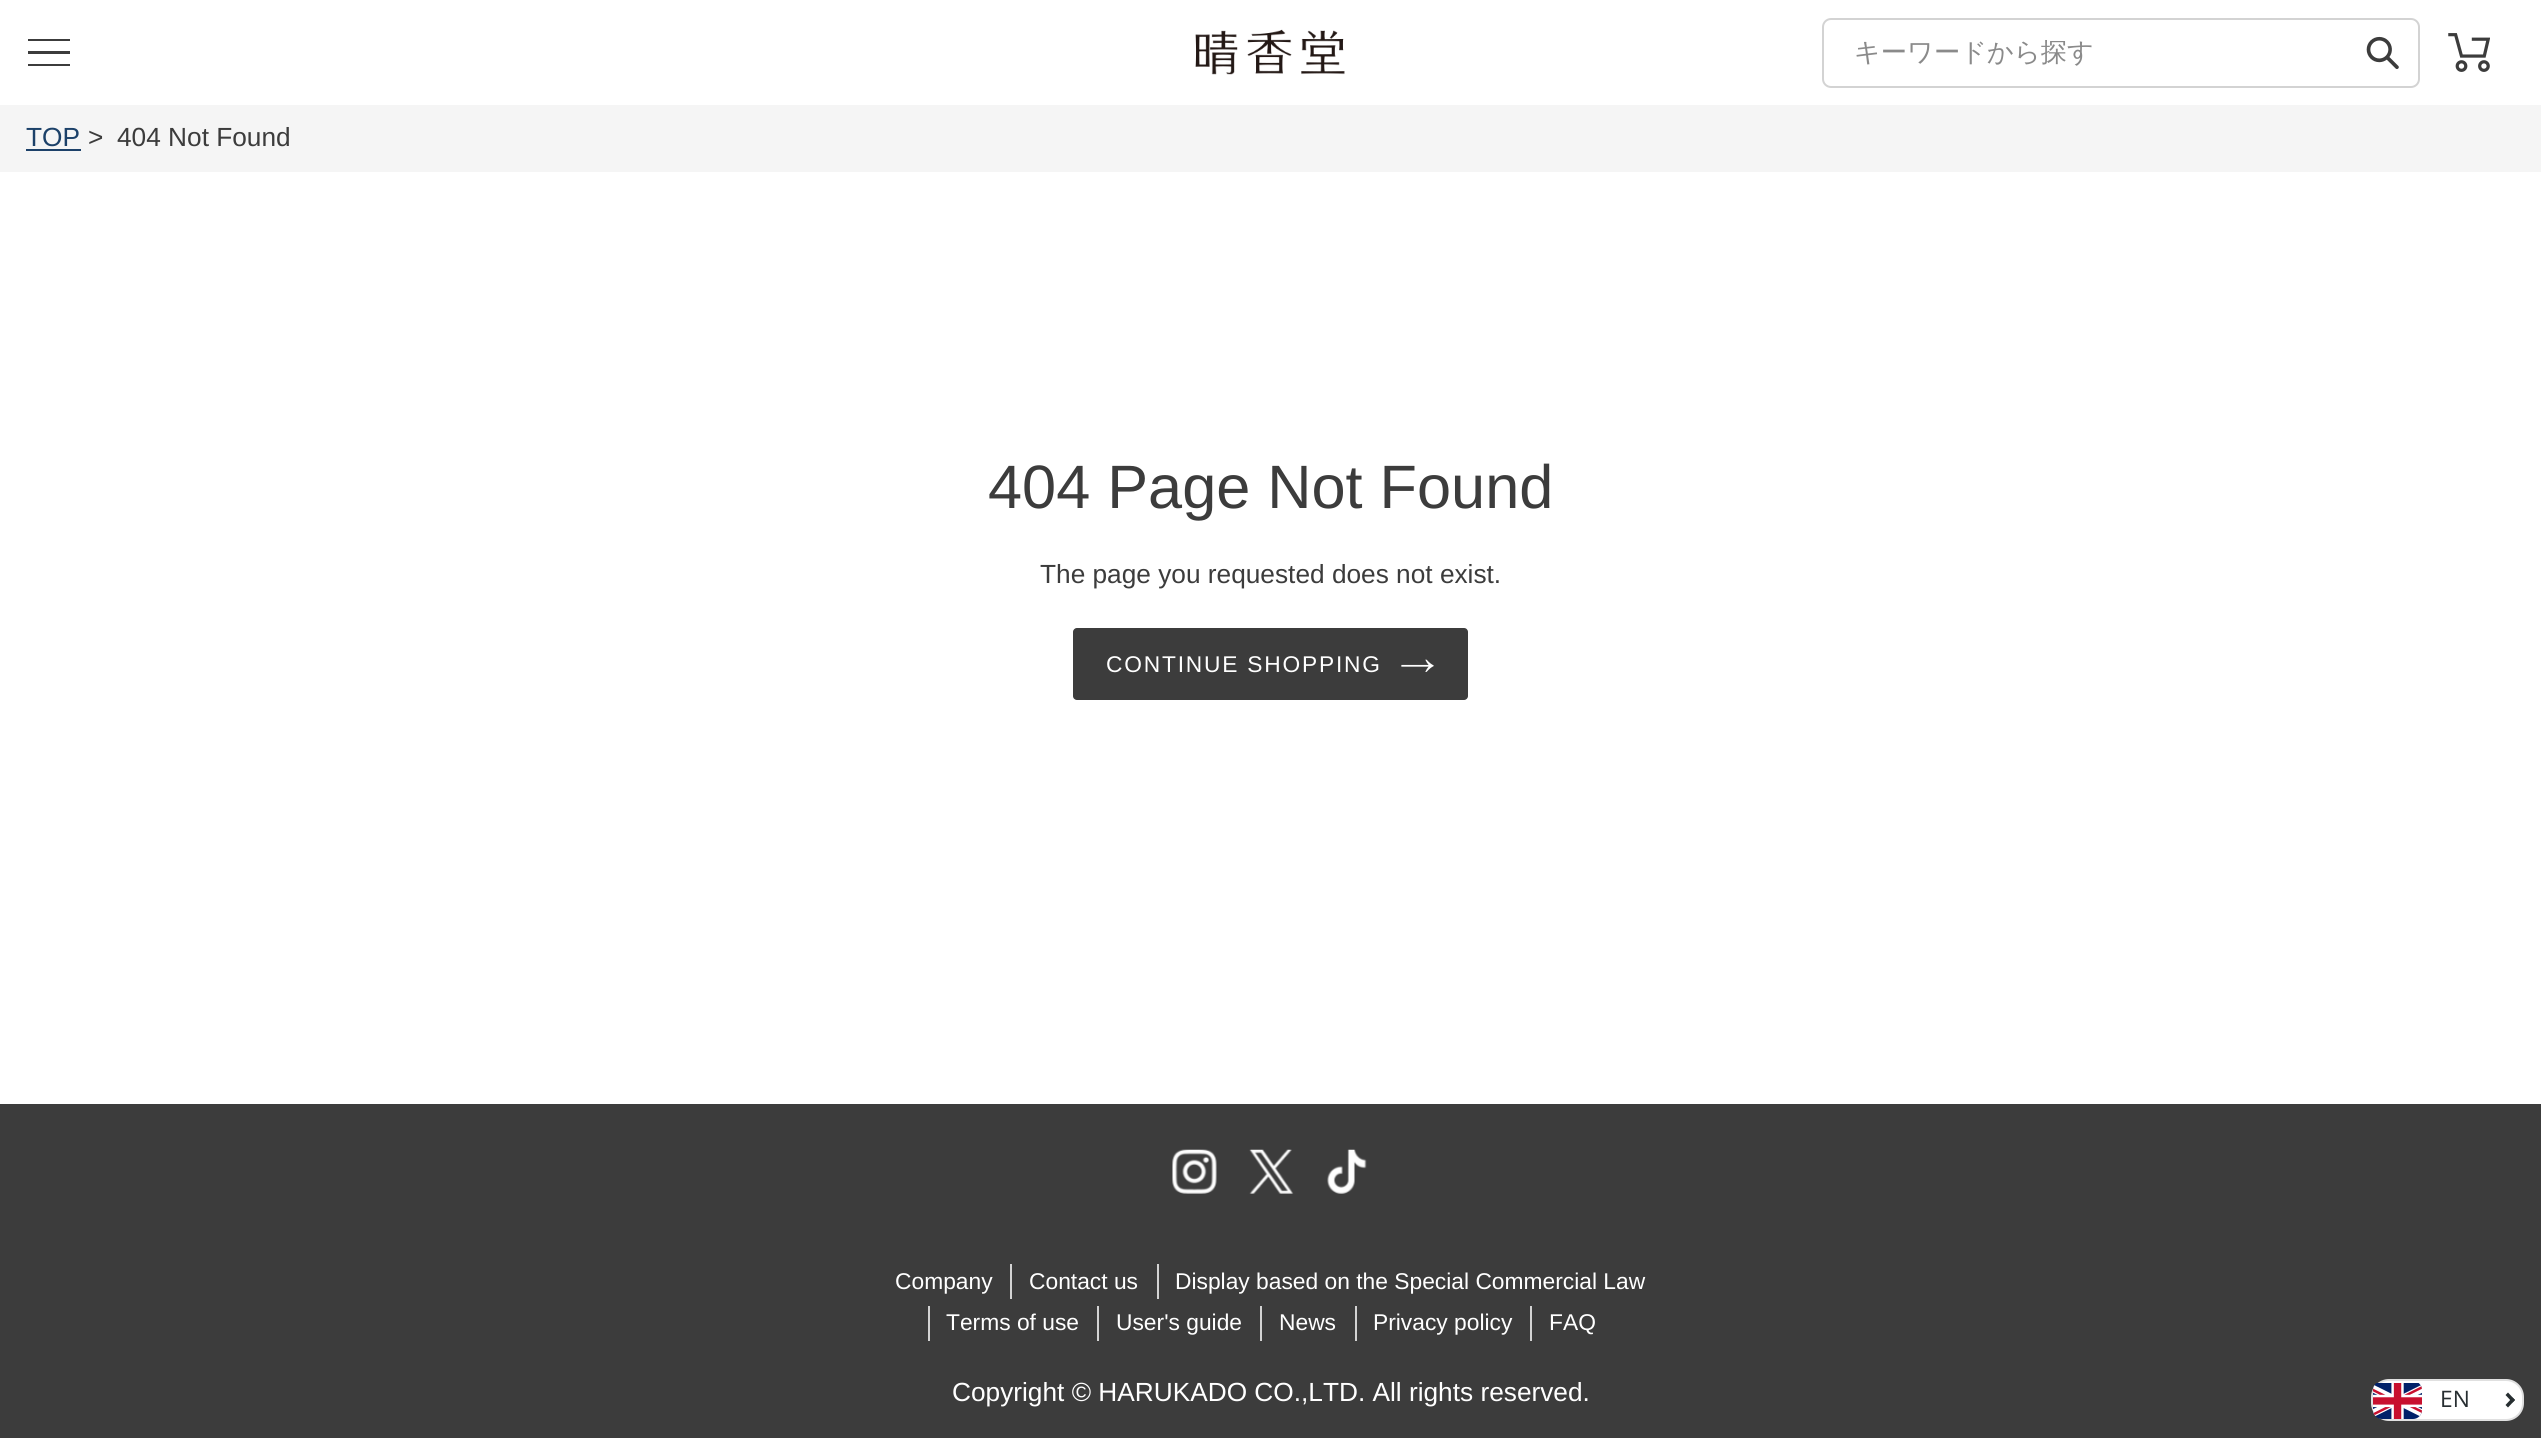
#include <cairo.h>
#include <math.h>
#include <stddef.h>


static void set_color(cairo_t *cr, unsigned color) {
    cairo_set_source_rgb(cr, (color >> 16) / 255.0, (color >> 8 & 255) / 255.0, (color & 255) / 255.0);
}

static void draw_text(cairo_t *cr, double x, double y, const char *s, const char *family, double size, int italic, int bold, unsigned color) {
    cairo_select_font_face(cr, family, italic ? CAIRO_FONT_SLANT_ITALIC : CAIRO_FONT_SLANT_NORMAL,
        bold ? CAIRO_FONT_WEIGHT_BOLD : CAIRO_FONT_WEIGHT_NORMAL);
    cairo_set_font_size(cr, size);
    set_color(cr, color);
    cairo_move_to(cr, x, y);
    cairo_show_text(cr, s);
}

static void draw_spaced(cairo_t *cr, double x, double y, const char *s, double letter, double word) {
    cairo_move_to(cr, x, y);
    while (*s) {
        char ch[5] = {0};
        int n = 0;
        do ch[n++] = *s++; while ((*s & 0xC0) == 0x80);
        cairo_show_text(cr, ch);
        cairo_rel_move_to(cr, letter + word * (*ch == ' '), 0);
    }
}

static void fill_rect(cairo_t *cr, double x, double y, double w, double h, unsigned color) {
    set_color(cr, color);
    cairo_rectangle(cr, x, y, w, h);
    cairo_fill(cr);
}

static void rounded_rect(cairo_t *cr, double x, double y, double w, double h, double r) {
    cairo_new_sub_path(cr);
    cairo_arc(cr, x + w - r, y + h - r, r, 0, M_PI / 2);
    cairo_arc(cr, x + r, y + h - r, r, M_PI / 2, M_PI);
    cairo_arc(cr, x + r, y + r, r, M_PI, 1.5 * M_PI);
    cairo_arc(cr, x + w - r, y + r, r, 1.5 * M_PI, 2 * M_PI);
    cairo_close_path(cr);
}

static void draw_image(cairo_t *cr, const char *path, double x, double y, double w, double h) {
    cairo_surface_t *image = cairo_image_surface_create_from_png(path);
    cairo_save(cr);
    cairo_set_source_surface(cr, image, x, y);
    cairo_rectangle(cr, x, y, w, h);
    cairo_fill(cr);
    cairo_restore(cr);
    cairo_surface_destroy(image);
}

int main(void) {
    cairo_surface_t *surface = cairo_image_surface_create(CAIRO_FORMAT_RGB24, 2541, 1438);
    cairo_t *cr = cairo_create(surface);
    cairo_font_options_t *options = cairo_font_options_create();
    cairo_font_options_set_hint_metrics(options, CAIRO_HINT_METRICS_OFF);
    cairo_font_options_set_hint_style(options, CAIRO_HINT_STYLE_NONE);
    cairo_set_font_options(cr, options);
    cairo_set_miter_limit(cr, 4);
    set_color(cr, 0xFFFFFF);
    cairo_paint(cr);
    set_color(cr, 0x3C3C3C);
    cairo_new_path(cr);
    cairo_move_to(cr, 28, 39);
    cairo_line_to(cr, 70, 39);
    cairo_line_to(cr, 70, 41);
    cairo_line_to(cr, 28, 41);
    cairo_close_path(cr);
    cairo_move_to(cr, 28, 51);
    cairo_line_to(cr, 70, 51);
    cairo_line_to(cr, 70, 54);
    cairo_line_to(cr, 28, 54);
    cairo_close_path(cr);
    cairo_move_to(cr, 28, 64);
    cairo_line_to(cr, 70, 64);
    cairo_line_to(cr, 70, 66);
    cairo_line_to(cr, 28, 66);
    cairo_close_path(cr);
    cairo_fill(cr);
    draw_image(cr, "assets/img1.png", 1195, 29, 150, 46);
    rounded_rect(cr, 1823, 19, 596, 68, 8);
    set_color(cr, 0xD3D3D3);
    cairo_stroke(cr);
    draw_text(cr, 1854, 61, "キーワードから探す", "WenQuanYi Zen Hei Medium", 26.25, 0, 0, 0x8A8A8A);
    draw_image(cr, "assets/img2.png", 2366, 36, 33, 33);
    draw_image(cr, "assets/img3.png", 2448, 33, 42, 39);
    fill_rect(cr, 0, 105, 2541, 67, 0xF5F5F5);
    draw_text(cr, 26, 146, "TOP", "Liberation Sans", 26.25, 0, 0, 0x1C4169);
    fill_rect(cr, 26, 149, 55, 2, 0x1C4169);
    draw_text(cr, 88, 146, ">", "Liberation Sans", 26.25, 0, 0, 0x3C3C3C);
    draw_text(cr, 117, 146, "404 Not Found", "Liberation Sans", 26.25, 0, 0, 0x3C3C3C);
    draw_text(cr, 988, 508, "404 Page Not Found", "Liberation Sans", 61.25, 0, 0, 0x3C3C3C);
    draw_text(cr, 1040, 583, "The page you requested does not exist.", "Liberation Sans", 26.25, 0, 0, 0x3C3C3C);
    rounded_rect(cr, 1073, 628, 395, 72, 4);
    cairo_fill(cr);
    cairo_set_font_size(cr, 22.75);
    set_color(cr, 0xFFFFFF);
    draw_spaced(cr, 1106, 672, "CONTINUE SHOPPING", 1.8, 0);
    draw_image(cr, "assets/img4.png", 1401, 659, 33, 13);
    fill_rect(cr, 0, 1104, 2541, 334, 0x3C3C3C);
    draw_image(cr, "assets/img5.png", 1172, 1149, 45, 45);
    draw_image(cr, "assets/img6.png", 1249, 1149, 45, 45);
    draw_image(cr, "assets/img7.png", 1327, 1149, 40, 45);
    draw_text(cr, 895, 1289, "Company", "Liberation Sans", 22.8, 0, 0, 0xFFFFFF);
    fill_rect(cr, 1010, 1264, 2, 35, 0xD3D3D3);
    draw_text(cr, 1029, 1289, "Contact us", "Liberation Sans", 22.8, 0, 0, 0xFFFFFF);
    fill_rect(cr, 1157, 1264, 2, 35, 0xD3D3D3);
    draw_text(cr, 1175, 1289, "Display based on the Special Commercial Law", "Liberation Sans", 22.8, 0, 0, 0xFFFFFF);
    fill_rect(cr, 928, 1306, 2, 35, 0xD3D3D3);
    draw_text(cr, 946, 1330, "Terms of use", "Liberation Sans", 22.8, 0, 0, 0xFFFFFF);
    fill_rect(cr, 1097, 1306, 2, 35, 0xD3D3D3);
    draw_text(cr, 1116, 1330, "User's guide", "Liberation Sans", 22.8, 0, 0, 0xFFFFFF);
    fill_rect(cr, 1260, 1306, 2, 35, 0xD3D3D3);
    draw_text(cr, 1279, 1330, "News", "Liberation Sans", 22.8, 0, 0, 0xFFFFFF);
    fill_rect(cr, 1355, 1306, 2, 35, 0xD3D3D3);
    draw_text(cr, 1373, 1330, "Privacy policy", "Liberation Sans", 22.8, 0, 0, 0xFFFFFF);
    fill_rect(cr, 1530, 1306, 2, 35, 0xD3D3D3);
    draw_text(cr, 1549, 1330, "FAQ", "Liberation Sans", 22.8, 0, 0, 0xFFFFFF);
    draw_text(cr, 952, 1401, "Copyright © HARUKADO CO.,LTD. All rights reserved.", "Liberation Sans", 26.25, 0, 0, 0xFFFFFF);
    rounded_rect(cr, 2372, 1380, 151, 40, 17);
    cairo_fill_preserve(cr);
    set_color(cr, 0xE0E0E0);
    cairo_stroke(cr);
    draw_image(cr, "assets/img8.png", 2373, 1383, 49, 36);
    draw_text(cr, 2440, 1407, "EN", "Open Sans", 22.75, 0, 0, 0x272E31);
    cairo_new_path(cr);
    cairo_move_to(cr, 2508, 1392.5);
    cairo_line_to(cr, 2515, 1400);
    cairo_line_to(cr, 2512.5, 1402.5);
    cairo_line_to(cr, 2505.5, 1395);
    cairo_close_path(cr);
    cairo_fill(cr);
    cairo_new_path(cr);
    cairo_move_to(cr, 2512.5, 1397.5);
    cairo_line_to(cr, 2515, 1400);
    cairo_line_to(cr, 2508, 1407.5);
    cairo_line_to(cr, 2505.5, 1405);
    cairo_close_path(cr);
    cairo_fill(cr);
    cairo_surface_write_to_png(surface, "output.png");
    cairo_font_options_destroy(options);
    cairo_destroy(cr);
    cairo_surface_destroy(surface);
    return 0;
}
